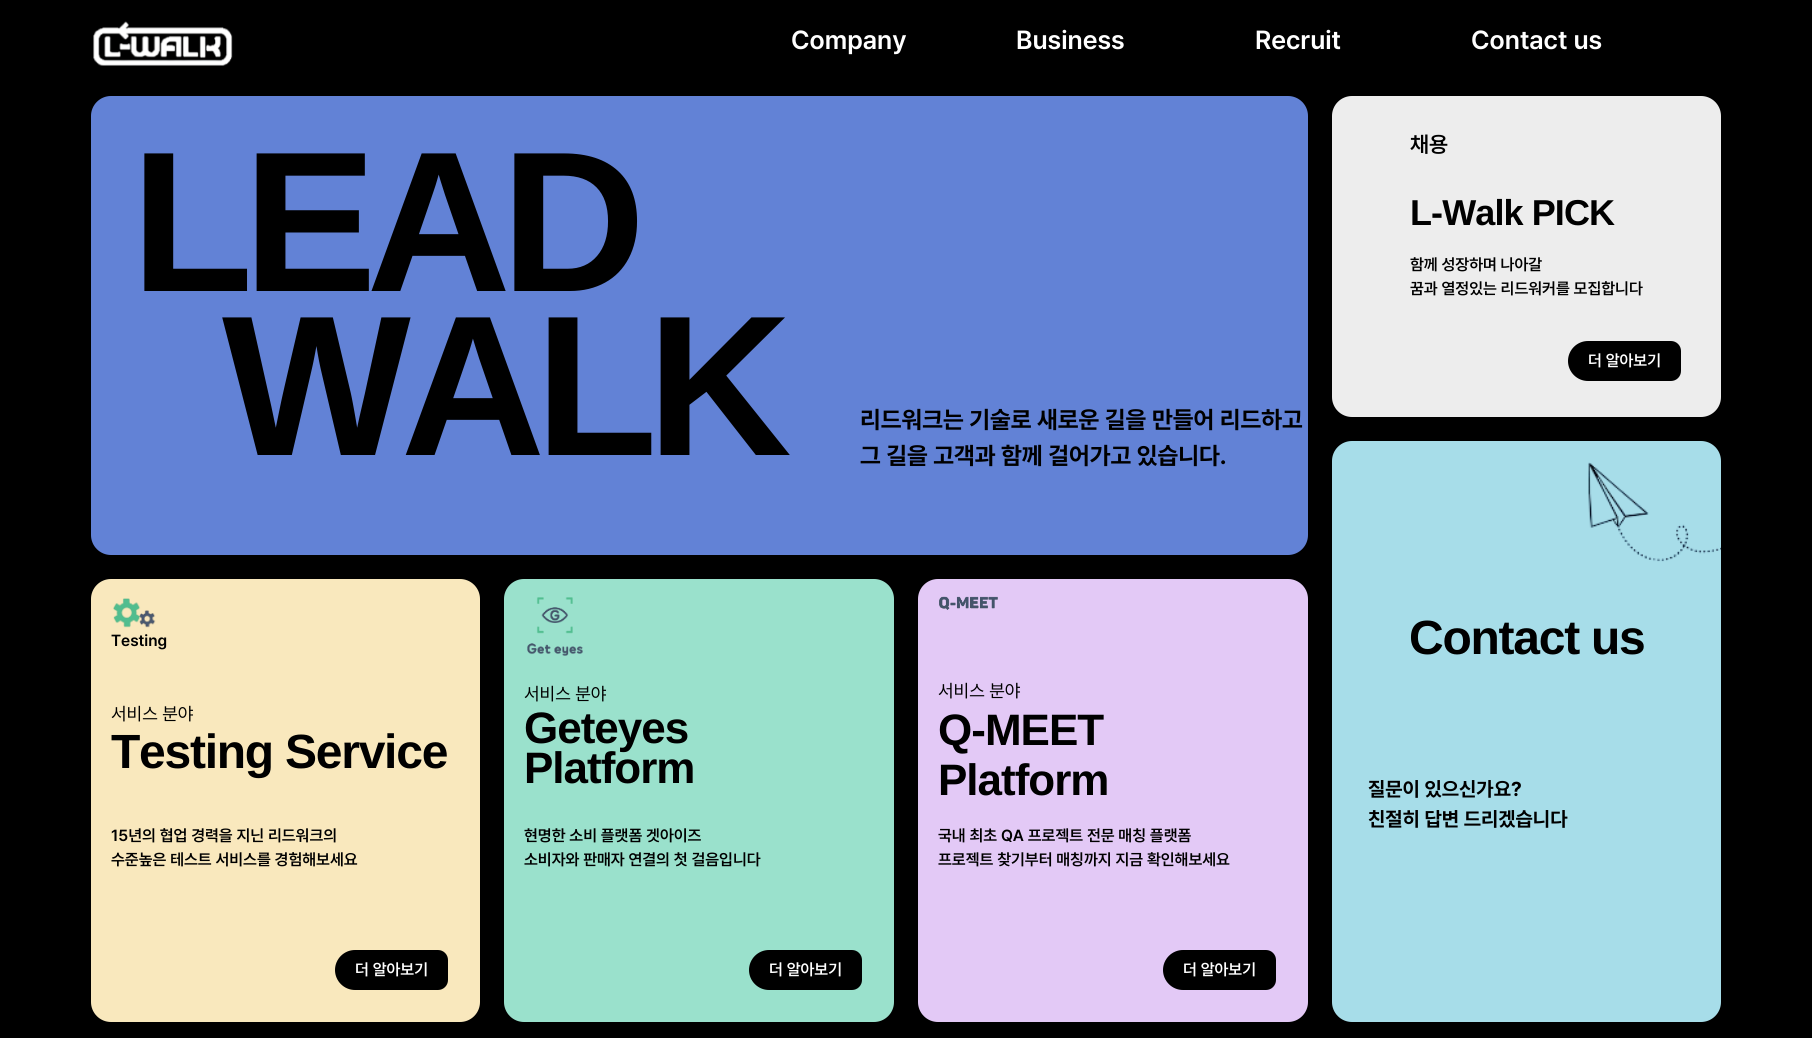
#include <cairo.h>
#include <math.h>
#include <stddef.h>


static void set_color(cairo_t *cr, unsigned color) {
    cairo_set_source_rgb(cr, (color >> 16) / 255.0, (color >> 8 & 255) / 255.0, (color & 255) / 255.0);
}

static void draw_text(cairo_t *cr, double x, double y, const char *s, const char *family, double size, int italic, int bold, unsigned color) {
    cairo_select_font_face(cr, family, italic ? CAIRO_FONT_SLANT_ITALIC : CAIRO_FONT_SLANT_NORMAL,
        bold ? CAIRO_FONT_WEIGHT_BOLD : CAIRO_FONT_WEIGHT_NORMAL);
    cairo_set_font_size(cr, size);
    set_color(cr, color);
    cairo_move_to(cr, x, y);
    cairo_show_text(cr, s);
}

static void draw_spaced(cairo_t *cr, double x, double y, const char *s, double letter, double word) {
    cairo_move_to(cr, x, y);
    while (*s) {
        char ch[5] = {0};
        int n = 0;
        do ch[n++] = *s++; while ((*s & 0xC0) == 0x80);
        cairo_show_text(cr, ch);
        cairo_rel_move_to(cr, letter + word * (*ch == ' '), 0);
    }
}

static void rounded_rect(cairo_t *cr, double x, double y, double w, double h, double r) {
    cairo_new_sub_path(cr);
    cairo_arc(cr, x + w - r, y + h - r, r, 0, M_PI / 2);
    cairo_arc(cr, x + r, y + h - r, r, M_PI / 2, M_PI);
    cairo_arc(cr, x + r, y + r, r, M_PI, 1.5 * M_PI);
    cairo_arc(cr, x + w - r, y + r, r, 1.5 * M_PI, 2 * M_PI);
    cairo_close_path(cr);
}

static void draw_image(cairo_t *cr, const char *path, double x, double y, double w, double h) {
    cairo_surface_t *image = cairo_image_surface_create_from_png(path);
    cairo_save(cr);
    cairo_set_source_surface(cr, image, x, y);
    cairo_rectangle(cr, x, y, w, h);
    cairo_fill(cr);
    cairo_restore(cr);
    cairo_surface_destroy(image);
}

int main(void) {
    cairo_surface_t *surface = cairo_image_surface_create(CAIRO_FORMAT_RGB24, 1812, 1038);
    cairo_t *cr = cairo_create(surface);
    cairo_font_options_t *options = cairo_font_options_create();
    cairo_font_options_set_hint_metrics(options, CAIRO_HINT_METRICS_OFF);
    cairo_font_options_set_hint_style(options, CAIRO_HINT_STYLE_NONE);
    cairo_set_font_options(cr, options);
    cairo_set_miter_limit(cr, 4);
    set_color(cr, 0x000000);
    cairo_paint(cr);
    draw_image(cr, "assets/img1.png", 93, 21, 140, 45);
    draw_text(cr, 791, 49, "Company", "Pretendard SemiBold", 26, 0, 0, 0xFFFFFF);
    draw_text(cr, 1016, 49, "Business", "Pretendard SemiBold", 26, 0, 0, 0xFFFFFF);
    draw_text(cr, 1255, 49, "Recruit", "Pretendard SemiBold", 26, 0, 0, 0xFFFFFF);
    draw_text(cr, 1471, 49, "Contact us", "Pretendard SemiBold", 26, 0, 0, 0xFFFFFF);
    set_color(cr, 0x6282D6);
    rounded_rect(cr, 91, 96, 1217, 459, 20);
    cairo_fill(cr);
    cairo_select_font_face(cr, "Liberation Sans", CAIRO_FONT_SLANT_NORMAL, CAIRO_FONT_WEIGHT_BOLD);
    cairo_set_font_size(cr, 200);
    set_color(cr, 0x000000);
    draw_spaced(cr, 131, 291, "LEAD", -10, 0);
    draw_spaced(cr, 222, 455, "WALK", -10, 0);
    draw_text(cr, 860, 428, "리드워크는 기술로 새로운 길을 만들어 리드하고", "Pretendard", 24, 0, 1, 0x000000);
    draw_text(cr, 860, 464, "그 길을 고객과 함께 걸어가고 있습니다.", "Pretendard", 24, 0, 1, 0x000000);
    set_color(cr, 0xEDEDED);
    rounded_rect(cr, 1332, 96, 389, 321, 20);
    cairo_fill(cr);
    draw_text(cr, 1410, 152, "채용", "Pretendard SemiBold", 22, 0, 0, 0x000000);
    cairo_select_font_face(cr, "Liberation Sans", CAIRO_FONT_SLANT_NORMAL, CAIRO_FONT_WEIGHT_BOLD);
    cairo_set_font_size(cr, 36);
    draw_spaced(cr, 1410, 225, "L-Walk PICK", -0.9, 0);
    draw_text(cr, 1410, 270, "함께 성장하며 나아갈", "Pretendard SemiBold", 16, 0, 0, 0x000000);
    draw_text(cr, 1410, 294, "꿈과 열정있는 리드워커를 모집합니다", "Pretendard SemiBold", 16, 0, 0, 0x000000);
    cairo_new_path(cr);
    cairo_move_to(cr, 1588, 341);
    cairo_line_to(cr, 1671, 341);
    cairo_curve_to(cr, 1676.5, 341, 1681, 345.5, 1681, 351);
    cairo_line_to(cr, 1681, 371);
    cairo_curve_to(cr, 1681, 376.5, 1676.5, 381, 1671, 381);
    cairo_line_to(cr, 1588, 381);
    cairo_curve_to(cr, 1577, 381, 1568, 372, 1568, 361);
    cairo_curve_to(cr, 1568, 350, 1577, 341, 1588, 341);
    cairo_close_path(cr);
    cairo_fill(cr);
    draw_text(cr, 1588, 366, "더 알아보기", "Pretendard SemiBold", 16, 0, 0, 0xFFFFFF);
    set_color(cr, 0xF9E8BD);
    rounded_rect(cr, 91, 579, 389, 443, 20);
    cairo_fill(cr);
    draw_image(cr, "assets/img2.png", 113, 598, 43, 30);
    draw_text(cr, 111, 646, "Testing", "Pretendard SemiBold", 16, 0, 0, 0x000000);
    draw_text(cr, 111, 720, "서비스 분야", "Pretendard", 18, 0, 0, 0x000000);
    cairo_select_font_face(cr, "Liberation Sans", CAIRO_FONT_SLANT_NORMAL, CAIRO_FONT_WEIGHT_BOLD);
    cairo_set_font_size(cr, 48);
    draw_spaced(cr, 111, 768, "Testing Service", -1.25, 0);
    draw_text(cr, 111, 841, "15년의 협업 경력을 지닌 리드워크의", "Pretendard SemiBold", 16, 0, 0, 0x000000);
    draw_text(cr, 111, 865, "수준높은 테스트 서비스를 경험해보세요", "Pretendard SemiBold", 16, 0, 0, 0x000000);
    cairo_new_path(cr);
    cairo_move_to(cr, 355, 950);
    cairo_line_to(cr, 438, 950);
    cairo_curve_to(cr, 443.5, 950, 448, 954.5, 448, 960);
    cairo_line_to(cr, 448, 980);
    cairo_curve_to(cr, 448, 985.5, 443.5, 990, 438, 990);
    cairo_line_to(cr, 355, 990);
    cairo_curve_to(cr, 344, 990, 335, 981, 335, 970);
    cairo_curve_to(cr, 335, 959, 344, 950, 355, 950);
    cairo_close_path(cr);
    cairo_fill(cr);
    draw_text(cr, 355, 975, "더 알아보기", "Pretendard SemiBold", 16, 0, 0, 0xFFFFFF);
    set_color(cr, 0x9AE1CC);
    rounded_rect(cr, 504, 579, 390, 443, 20);
    cairo_fill(cr);
    draw_image(cr, "assets/img3.png", 527, 597, 56, 59);
    draw_text(cr, 524, 700, "서비스 분야", "Pretendard", 18, 0, 0, 0x000000);
    cairo_select_font_face(cr, "Liberation Sans", CAIRO_FONT_SLANT_NORMAL, CAIRO_FONT_WEIGHT_BOLD);
    cairo_set_font_size(cr, 44);
    draw_spaced(cr, 524, 743, "Geteyes", -1, 0);
    draw_spaced(cr, 524, 783, "Platform", -1, 0);
    draw_text(cr, 524, 841, "현명한 소비 플랫폼 겟아이즈", "Pretendard SemiBold", 16, 0, 0, 0x000000);
    draw_text(cr, 524, 865, "소비자와 판매자 연결의 첫 걸음입니다", "Pretendard SemiBold", 16, 0, 0, 0x000000);
    cairo_new_path(cr);
    cairo_move_to(cr, 769, 950);
    cairo_line_to(cr, 852, 950);
    cairo_curve_to(cr, 857.5, 950, 862, 954.5, 862, 960);
    cairo_line_to(cr, 862, 980);
    cairo_curve_to(cr, 862, 985.5, 857.5, 990, 852, 990);
    cairo_line_to(cr, 769, 990);
    cairo_curve_to(cr, 758, 990, 749, 981, 749, 970);
    cairo_curve_to(cr, 749, 959, 758, 950, 769, 950);
    cairo_close_path(cr);
    cairo_fill(cr);
    draw_text(cr, 769, 975, "더 알아보기", "Pretendard SemiBold", 16, 0, 0, 0xFFFFFF);
    set_color(cr, 0xE3C9F6);
    rounded_rect(cr, 918, 579, 390, 443, 20);
    cairo_fill(cr);
    draw_image(cr, "assets/img4.png", 939, 596, 59, 14);
    draw_text(cr, 938, 697, "서비스 분야", "Pretendard", 18, 0, 0, 0x000000);
    cairo_select_font_face(cr, "Liberation Sans", CAIRO_FONT_SLANT_NORMAL, CAIRO_FONT_WEIGHT_BOLD);
    cairo_set_font_size(cr, 44);
    draw_spaced(cr, 938, 745, "Q-MEET", -1, 0);
    draw_spaced(cr, 938, 795, "Platform", -1, 0);
    draw_text(cr, 938, 841, "국내 최초 QA 프로젝트 전문 매칭 플랫폼", "Pretendard SemiBold", 16, 0, 0, 0x000000);
    draw_text(cr, 938, 865, "프로젝트 찾기부터 매칭까지 지금 확인해보세요", "Pretendard SemiBold", 16, 0, 0, 0x000000);
    cairo_new_path(cr);
    cairo_move_to(cr, 1183, 950);
    cairo_line_to(cr, 1266, 950);
    cairo_curve_to(cr, 1271.5, 950, 1276, 954.5, 1276, 960);
    cairo_line_to(cr, 1276, 980);
    cairo_curve_to(cr, 1276, 985.5, 1271.5, 990, 1266, 990);
    cairo_line_to(cr, 1183, 990);
    cairo_curve_to(cr, 1172, 990, 1163, 981, 1163, 970);
    cairo_curve_to(cr, 1163, 959, 1172, 950, 1183, 950);
    cairo_close_path(cr);
    cairo_fill(cr);
    draw_text(cr, 1183, 975, "더 알아보기", "Pretendard SemiBold", 16, 0, 0, 0xFFFFFF);
    set_color(cr, 0xA7DDE9);
    rounded_rect(cr, 1332, 441, 389, 581, 20);
    cairo_fill(cr);
    draw_image(cr, "assets/img5.png", 1588, 462, 133, 100);
    cairo_select_font_face(cr, "Liberation Sans", CAIRO_FONT_SLANT_NORMAL, CAIRO_FONT_WEIGHT_BOLD);
    cairo_set_font_size(cr, 48);
    set_color(cr, 0x000000);
    draw_spaced(cr, 1409, 654, "Contact us", -1.25, 0);
    draw_text(cr, 1368, 796, "질문이 있으신가요?", "Pretendard", 20, 0, 1, 0x000000);
    draw_text(cr, 1368, 826, "친절히 답변 드리겠습니다", "Pretendard", 20, 0, 1, 0x000000);
    cairo_surface_write_to_png(surface, "output.png");
    cairo_font_options_destroy(options);
    cairo_destroy(cr);
    cairo_surface_destroy(surface);
    return 0;
}
